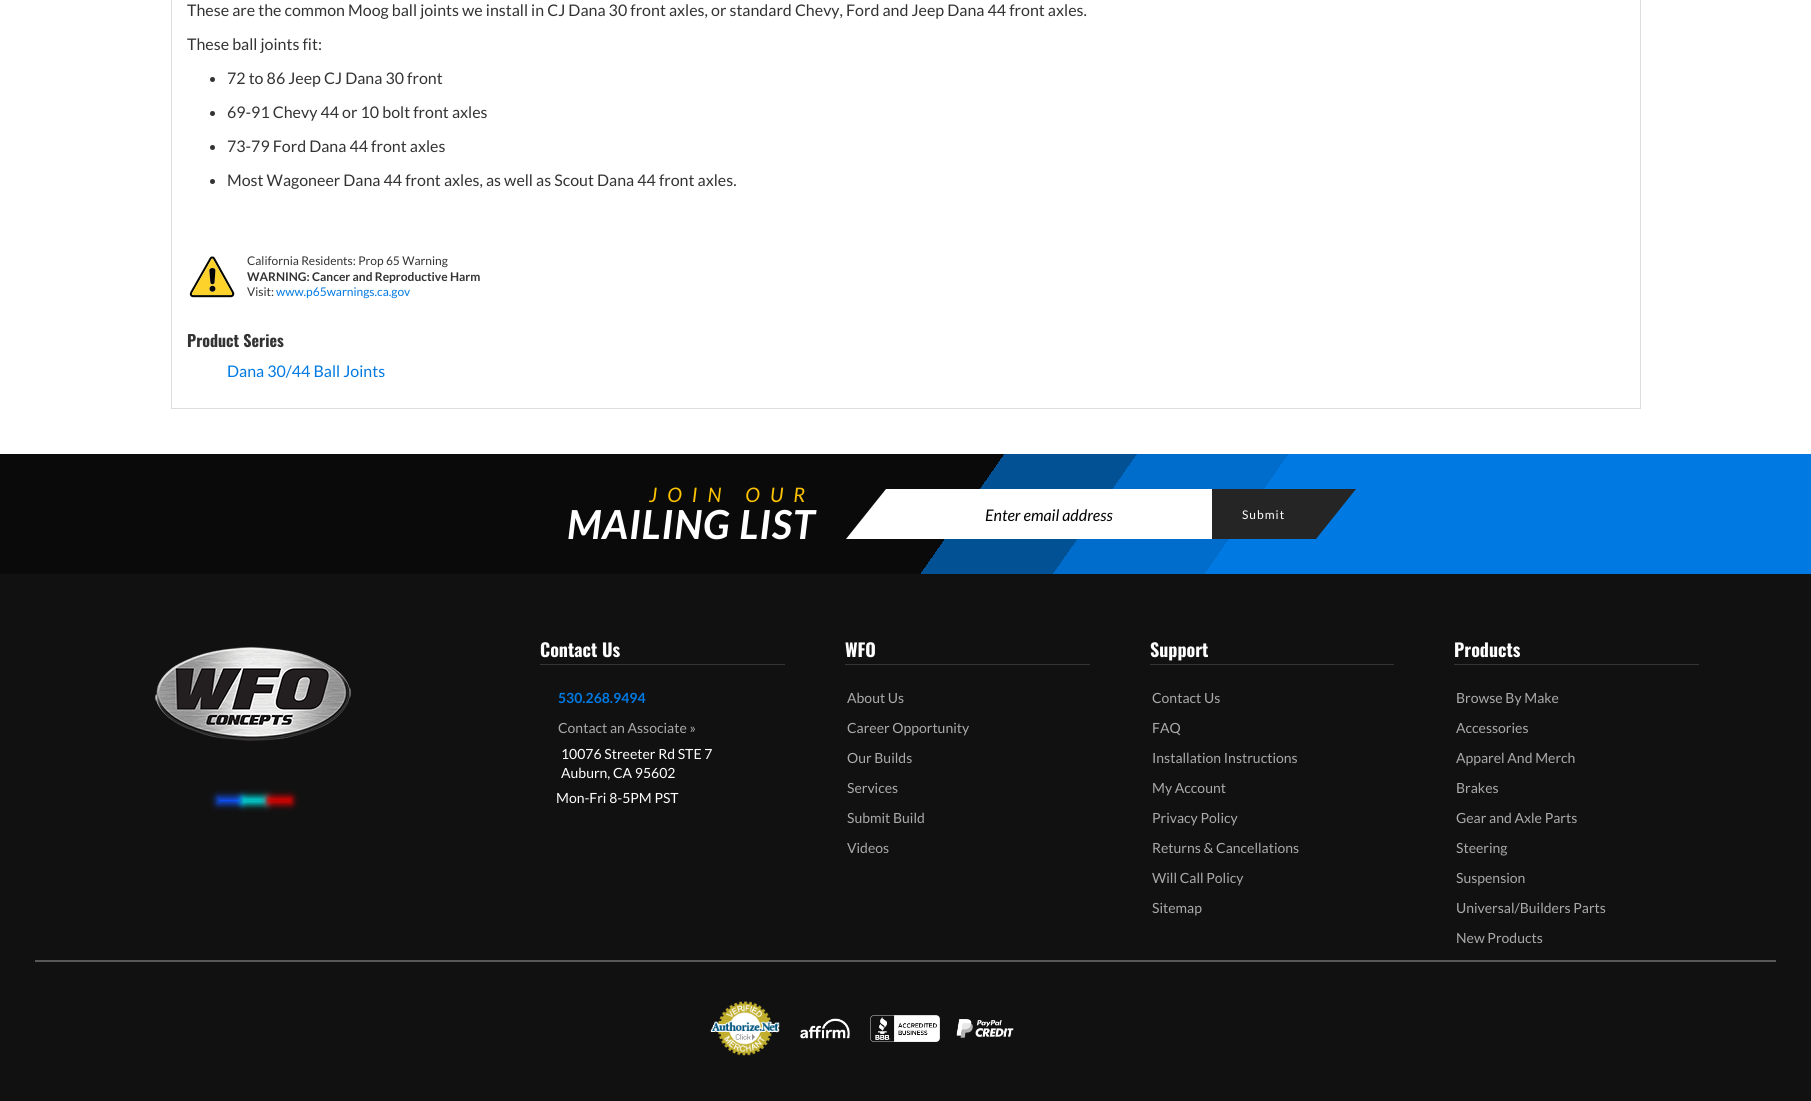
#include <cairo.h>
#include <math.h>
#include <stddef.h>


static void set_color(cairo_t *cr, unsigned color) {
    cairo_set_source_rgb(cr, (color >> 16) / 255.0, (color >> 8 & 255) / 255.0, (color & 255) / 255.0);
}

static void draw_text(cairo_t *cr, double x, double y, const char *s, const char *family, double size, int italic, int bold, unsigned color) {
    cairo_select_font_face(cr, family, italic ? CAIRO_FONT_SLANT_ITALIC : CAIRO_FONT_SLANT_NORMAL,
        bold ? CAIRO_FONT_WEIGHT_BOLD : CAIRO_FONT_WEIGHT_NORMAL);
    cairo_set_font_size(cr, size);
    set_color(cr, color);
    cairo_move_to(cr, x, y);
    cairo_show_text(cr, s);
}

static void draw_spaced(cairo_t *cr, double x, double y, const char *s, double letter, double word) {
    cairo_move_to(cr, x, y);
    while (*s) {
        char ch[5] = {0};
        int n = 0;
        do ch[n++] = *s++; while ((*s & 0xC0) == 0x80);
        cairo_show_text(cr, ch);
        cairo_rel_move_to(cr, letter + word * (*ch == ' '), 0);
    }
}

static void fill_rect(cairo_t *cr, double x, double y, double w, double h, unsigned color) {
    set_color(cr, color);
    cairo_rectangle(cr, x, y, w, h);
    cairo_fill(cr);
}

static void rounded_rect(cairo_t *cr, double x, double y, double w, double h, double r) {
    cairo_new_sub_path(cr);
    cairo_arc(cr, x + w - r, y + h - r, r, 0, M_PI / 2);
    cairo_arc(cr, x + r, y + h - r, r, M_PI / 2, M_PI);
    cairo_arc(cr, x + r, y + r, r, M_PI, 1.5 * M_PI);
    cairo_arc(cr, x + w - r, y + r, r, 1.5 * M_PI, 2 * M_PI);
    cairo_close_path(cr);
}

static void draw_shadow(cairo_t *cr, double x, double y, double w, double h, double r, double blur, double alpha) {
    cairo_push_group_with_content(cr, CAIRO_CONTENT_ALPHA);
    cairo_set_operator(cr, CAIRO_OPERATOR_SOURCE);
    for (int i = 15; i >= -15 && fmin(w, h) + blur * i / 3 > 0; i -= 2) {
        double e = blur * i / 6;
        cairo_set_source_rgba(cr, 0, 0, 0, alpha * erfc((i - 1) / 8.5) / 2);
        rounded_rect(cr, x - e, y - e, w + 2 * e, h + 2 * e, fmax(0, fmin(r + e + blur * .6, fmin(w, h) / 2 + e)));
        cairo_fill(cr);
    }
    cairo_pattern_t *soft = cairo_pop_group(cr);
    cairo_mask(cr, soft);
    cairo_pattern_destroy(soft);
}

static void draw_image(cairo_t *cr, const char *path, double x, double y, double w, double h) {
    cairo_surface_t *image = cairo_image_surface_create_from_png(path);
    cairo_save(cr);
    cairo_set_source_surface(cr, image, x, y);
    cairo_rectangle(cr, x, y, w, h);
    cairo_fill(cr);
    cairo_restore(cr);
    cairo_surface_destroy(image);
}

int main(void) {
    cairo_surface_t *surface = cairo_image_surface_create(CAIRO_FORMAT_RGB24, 1811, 1101);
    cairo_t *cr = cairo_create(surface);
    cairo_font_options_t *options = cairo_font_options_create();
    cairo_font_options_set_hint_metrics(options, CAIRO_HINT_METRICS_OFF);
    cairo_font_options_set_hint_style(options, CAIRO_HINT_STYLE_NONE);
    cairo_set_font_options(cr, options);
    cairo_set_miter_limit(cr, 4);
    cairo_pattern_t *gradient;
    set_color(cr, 0xFFFFFF);
    cairo_paint(cr);
    fill_rect(cr, 1640, 0, 1, 409, 0xDDDDDD);
    fill_rect(cr, 171, 408, 1470, 1, 0xDDDDDD);
    fill_rect(cr, 171, 0, 1, 409, 0xDDDDDD);
    draw_text(cr, 187, 16, "These are the common Moog ball joints we install in CJ Dana 30 front axles, or standard Chevy, Ford and Jeep Dana 44 front axles.", "Lato", 16, 0, 0, 0x333333);
    draw_text(cr, 187, 50, "These ball joints fit:", "Lato", 16, 0, 0, 0x333333);
    cairo_new_path(cr);
    cairo_arc(cr, 212.5, 79.5, 2.5, 0, 2 * M_PI);
    cairo_fill(cr);
    draw_text(cr, 227, 84, "72 to 86 Jeep CJ Dana 30 front", "Lato", 16, 0, 0, 0x333333);
    cairo_new_path(cr);
    cairo_arc(cr, 212.5, 113.5, 2.5, 0, 2 * M_PI);
    cairo_fill(cr);
    draw_text(cr, 227, 118, "69-91 Chevy 44 or 10 bolt front axles", "Lato", 16, 0, 0, 0x333333);
    cairo_new_path(cr);
    cairo_arc(cr, 212.5, 147.5, 2.5, 0, 2 * M_PI);
    cairo_fill(cr);
    draw_text(cr, 227, 152, "73-79 Ford Dana 44 front axles", "Lato", 16, 0, 0, 0x333333);
    cairo_new_path(cr);
    cairo_arc(cr, 212.5, 181.5, 2.5, 0, 2 * M_PI);
    cairo_fill(cr);
    draw_text(cr, 227, 186, "Most Wagoneer Dana 44 front axles, as well as Scout Dana 44 front axles.", "Lato", 16, 0, 0, 0x333333);
    draw_image(cr, "assets/img1.png", 189, 256, 46, 42);
    draw_text(cr, 247, 265, "California Residents: Prop 65 Warning", "Lato", 12, 0, 0, 0x333333);
    draw_text(cr, 247, 281, "WARNING: Cancer and Reproductive Harm", "Lato", 12, 0, 1, 0x333333);
    draw_text(cr, 247, 296, "Visit:", "Lato", 12, 0, 0, 0x333333);
    draw_text(cr, 276, 296, "www.p65warnings.ca.gov", "Lato", 12, 0, 0, 0x0079E2);
    draw_text(cr, 187, 347, "Product Series", "Oswald", 16, 0, 1, 0x333333);
    draw_text(cr, 227, 377, "Dana 30/44 Ball Joints", "Lato", 16, 0, 0, 0x0079E2);
    gradient = cairo_pattern_create_linear(270, 69, 1541, 959);
    cairo_pattern_add_color_stop_rgba(gradient, 0, 0.039, 0.039, 0.039, 1);
    cairo_pattern_add_color_stop_rgba(gradient, 0.53, 0.039, 0.039, 0.039, 1);
    cairo_pattern_add_color_stop_rgba(gradient, 0.53, 0.012, 0.318, 0.584, 1);
    cairo_pattern_add_color_stop_rgba(gradient, 0.6, 0.012, 0.318, 0.584, 1);
    cairo_pattern_add_color_stop_rgba(gradient, 0.6, 0, 0.427, 0.8, 1);
    cairo_pattern_add_color_stop_rgba(gradient, 0.68, 0, 0.427, 0.8, 1);
    cairo_pattern_add_color_stop_rgba(gradient, 0.68, 0, 0.475, 0.886, 1);
    cairo_pattern_add_color_stop_rgba(gradient, 1, 0, 0.475, 0.886, 1);
    cairo_set_source(cr, gradient);
    cairo_pattern_destroy(gradient);
    cairo_rectangle(cr, 0, 454, 1811, 120);
    cairo_fill(cr);
    cairo_select_font_face(cr, "Lato", CAIRO_FONT_SLANT_ITALIC, CAIRO_FONT_WEIGHT_NORMAL);
    cairo_set_font_size(cr, 20);
    set_color(cr, 0xFDC300);
    draw_spaced(cr, 649, 502, "JOIN OUR", 10, 0);
    cairo_select_font_face(cr, "Lato", CAIRO_FONT_SLANT_ITALIC, CAIRO_FONT_WEIGHT_BOLD);
    cairo_set_font_size(cr, 40);
    set_color(cr, 0xFFFFFF);
    draw_spaced(cr, 567, 539, "MAILING LIST", 1, 0);
    cairo_new_path(cr);
    cairo_move_to(cr, 886, 539);
    cairo_line_to(cr, 846, 539);
    cairo_line_to(cr, 886, 489);
    cairo_close_path(cr);
    cairo_fill(cr);
    fill_rect(cr, 886, 489, 326, 50, 0xFFFFFF);
    draw_text(cr, 985, 521, "Enter email address", "Lato", 16, 1, 0, 0x000000);
    fill_rect(cr, 1212, 489, 104, 50, 0x252525);
    cairo_select_font_face(cr, "Lato", CAIRO_FONT_SLANT_NORMAL, CAIRO_FONT_WEIGHT_NORMAL);
    cairo_set_font_size(cr, 12);
    set_color(cr, 0xFFFFFF);
    draw_spaced(cr, 1242, 519, "Submit", 1, 0);
    set_color(cr, 0x252525);
    cairo_new_path(cr);
    cairo_move_to(cr, 1316, 489);
    cairo_line_to(cr, 1356, 489);
    cairo_line_to(cr, 1316, 539);
    cairo_close_path(cr);
    cairo_fill(cr);
    fill_rect(cr, 0, 574, 1811, 527, 0x111111);
    draw_image(cr, "assets/img2.png", 155, 647, 196, 94);
    set_color(cr, 0x1155FF);
    draw_shadow(cr, 217, 797, 25, 7, 0, 3.5, 1);
    fill_rect(cr, 220, 800, 19, 1, 0x0B4FF9);
    set_color(cr, 0x00F5F5);
    draw_shadow(cr, 242, 797, 25, 7, 0, 3.5, 1);
    fill_rect(cr, 245, 800, 19, 1, 0x02B9B9);
    set_color(cr, 0xFF0000);
    draw_shadow(cr, 267, 797, 25, 7, 0, 3.5, 1);
    fill_rect(cr, 270, 800, 19, 1, 0xC10000);
    fill_rect(cr, 540, 664, 245, 1, 0x353535);
    draw_text(cr, 540, 657, "Contact Us", "Oswald", 18, 0, 1, 0xFFFFFF);
    draw_text(cr, 558, 703, "530.268.9494", "Lato", 14, 0, 1, 0x0079E2);
    draw_text(cr, 558, 733, "Contact an Associate »", "Lato", 14, 0, 0, 0xAAAAAA);
    draw_text(cr, 561, 759, "10076 Streeter Rd STE 7", "Lato", 14, 0, 0, 0xFFFFFF);
    draw_text(cr, 561, 778, "Auburn, CA 95602", "Lato", 14, 0, 0, 0xFFFFFF);
    draw_text(cr, 556, 803, "Mon-Fri 8-5PM PST", "Lato", 14, 0, 0, 0xFFFFFF);
    fill_rect(cr, 845, 664, 245, 1, 0x353535);
    draw_text(cr, 845, 657, "WFO", "Oswald", 18, 0, 1, 0xFFFFFF);
    draw_text(cr, 847, 703, "About Us", "Lato", 14, 0, 0, 0xAAAAAA);
    draw_text(cr, 847, 733, "Career Opportunity", "Lato", 14, 0, 0, 0xAAAAAA);
    draw_text(cr, 847, 763, "Our Builds", "Lato", 14, 0, 0, 0xAAAAAA);
    draw_text(cr, 847, 793, "Services", "Lato", 14, 0, 0, 0xAAAAAA);
    draw_text(cr, 847, 823, "Submit Build", "Lato", 14, 0, 0, 0xAAAAAA);
    draw_text(cr, 847, 853, "Videos", "Lato", 14, 0, 0, 0xAAAAAA);
    fill_rect(cr, 1150, 664, 244, 1, 0x353535);
    draw_text(cr, 1150, 657, "Support", "Oswald", 18, 0, 1, 0xFFFFFF);
    draw_text(cr, 1152, 703, "Contact Us", "Lato", 14, 0, 0, 0xAAAAAA);
    draw_text(cr, 1152, 733, "FAQ", "Lato", 14, 0, 0, 0xAAAAAA);
    draw_text(cr, 1152, 763, "Installation Instructions", "Lato", 14, 0, 0, 0xAAAAAA);
    draw_text(cr, 1152, 793, "My Account", "Lato", 14, 0, 0, 0xAAAAAA);
    draw_text(cr, 1152, 823, "Privacy Policy", "Lato", 14, 0, 0, 0xAAAAAA);
    draw_text(cr, 1152, 853, "Returns & Cancellations", "Lato", 14, 0, 0, 0xAAAAAA);
    draw_text(cr, 1152, 883, "Will Call Policy", "Lato", 14, 0, 0, 0xAAAAAA);
    draw_text(cr, 1152, 913, "Sitemap", "Lato", 14, 0, 0, 0xAAAAAA);
    fill_rect(cr, 1454, 664, 245, 1, 0x353535);
    draw_text(cr, 1454, 657, "Products", "Oswald", 18, 0, 1, 0xFFFFFF);
    draw_text(cr, 1456, 703, "Browse By Make", "Lato", 14, 0, 0, 0xAAAAAA);
    draw_text(cr, 1456, 733, "Accessories", "Lato", 14, 0, 0, 0xAAAAAA);
    draw_text(cr, 1456, 763, "Apparel And Merch", "Lato", 14, 0, 0, 0xAAAAAA);
    draw_text(cr, 1456, 793, "Brakes", "Lato", 14, 0, 0, 0xAAAAAA);
    draw_text(cr, 1456, 823, "Gear and Axle Parts", "Lato", 14, 0, 0, 0xAAAAAA);
    draw_text(cr, 1456, 853, "Steering", "Lato", 14, 0, 0, 0xAAAAAA);
    draw_text(cr, 1456, 883, "Suspension", "Lato", 14, 0, 0, 0xAAAAAA);
    draw_text(cr, 1456, 913, "Universal/Builders Parts", "Lato", 14, 0, 0, 0xAAAAAA);
    draw_text(cr, 1456, 943, "New Products", "Lato", 14, 0, 0, 0xAAAAAA);
    fill_rect(cr, 35, 960, 1741, 2, 0x585858);
    draw_image(cr, "assets/img3.png", 710, 1001, 70, 55);
    draw_image(cr, "assets/img4.png", 800, 1018, 50, 21);
    draw_image(cr, "assets/img5.png", 870, 1015, 70, 27);
    draw_image(cr, "assets/img6.png", 956, 1019, 58, 19);
    cairo_surface_write_to_png(surface, "output.png");
    cairo_font_options_destroy(options);
    cairo_destroy(cr);
    cairo_surface_destroy(surface);
    return 0;
}
